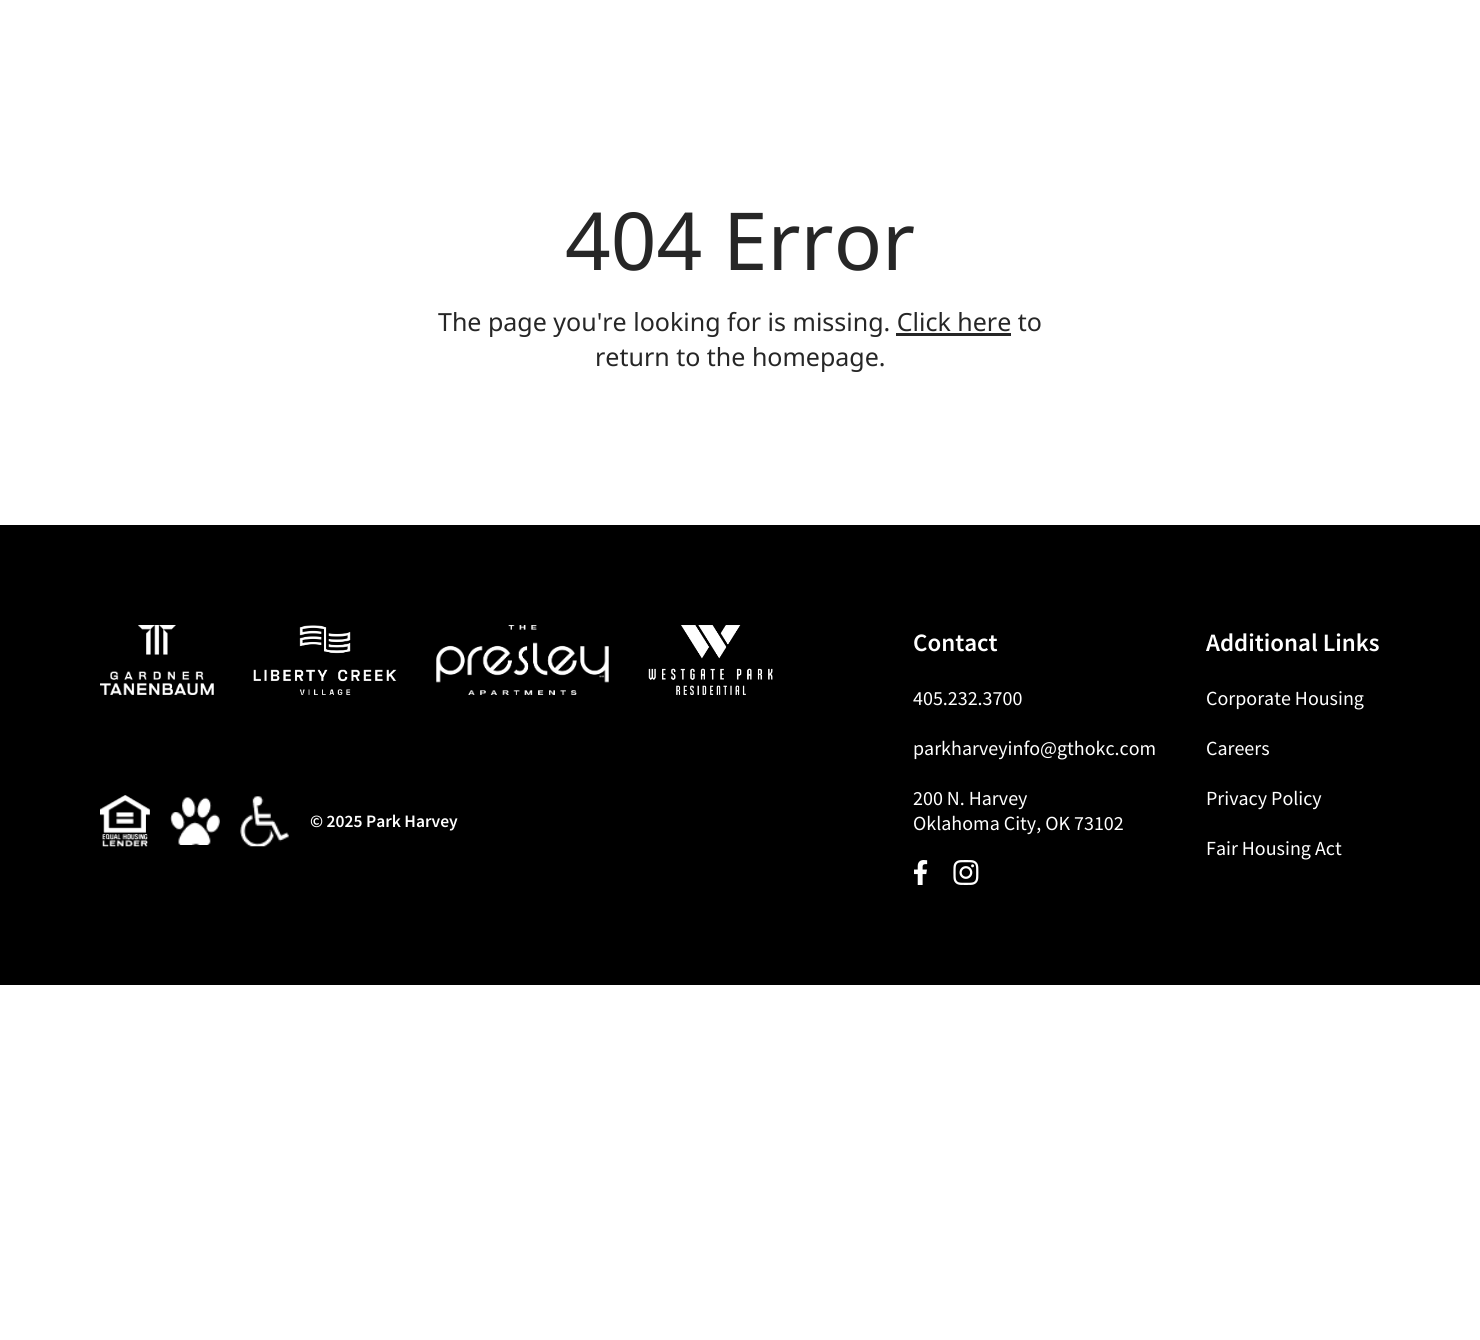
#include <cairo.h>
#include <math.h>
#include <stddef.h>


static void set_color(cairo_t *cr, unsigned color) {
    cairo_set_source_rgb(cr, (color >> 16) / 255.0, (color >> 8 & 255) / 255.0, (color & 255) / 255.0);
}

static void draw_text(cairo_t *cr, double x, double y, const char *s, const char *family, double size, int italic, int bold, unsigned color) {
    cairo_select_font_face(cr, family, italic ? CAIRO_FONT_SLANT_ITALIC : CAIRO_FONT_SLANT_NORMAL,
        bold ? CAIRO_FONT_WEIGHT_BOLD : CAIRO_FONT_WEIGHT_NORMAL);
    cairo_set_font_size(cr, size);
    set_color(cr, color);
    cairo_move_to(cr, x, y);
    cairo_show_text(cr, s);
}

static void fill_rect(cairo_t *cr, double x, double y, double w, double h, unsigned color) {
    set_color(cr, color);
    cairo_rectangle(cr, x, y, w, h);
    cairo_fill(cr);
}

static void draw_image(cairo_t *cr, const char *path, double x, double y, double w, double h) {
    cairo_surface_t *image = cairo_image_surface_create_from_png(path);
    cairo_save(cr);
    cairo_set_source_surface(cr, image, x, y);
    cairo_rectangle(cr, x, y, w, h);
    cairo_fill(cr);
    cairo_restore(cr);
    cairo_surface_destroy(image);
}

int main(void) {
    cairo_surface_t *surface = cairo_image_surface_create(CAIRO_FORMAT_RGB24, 1480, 1340);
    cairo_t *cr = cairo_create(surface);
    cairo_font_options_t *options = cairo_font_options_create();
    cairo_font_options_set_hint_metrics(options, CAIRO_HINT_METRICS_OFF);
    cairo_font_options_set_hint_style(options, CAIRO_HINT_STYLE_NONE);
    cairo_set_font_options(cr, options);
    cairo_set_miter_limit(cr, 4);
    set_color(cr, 0xFFFFFF);
    cairo_paint(cr);
    draw_text(cr, 565, 270, "404 Error", "Noto Sans", 80, 0, 0, 0x262626);
    draw_text(cr, 438, 331, "The page you're looking for is missing. Click here to", "Noto Sans", 25, 0, 0, 0x262626);
    fill_rect(cr, 896, 333, 115, 3, 0x262626);
    draw_text(cr, 595, 366, "return to the homepage.", "Noto Sans", 25, 0, 0, 0x262626);
    fill_rect(cr, 0, 525, 1480, 460, 0x000000);
    draw_image(cr, "assets/img1.png", 100, 625, 114, 70);
    draw_image(cr, "assets/img2.png", 253, 625, 144, 70);
    draw_image(cr, "assets/img3.png", 436, 625, 173, 70);
    draw_image(cr, "assets/img4.png", 648, 625, 125, 70);
    draw_image(cr, "assets/img5.png", 100, 795, 50, 52);
    draw_image(cr, "assets/img6.png", 170, 797, 50, 48);
    draw_image(cr, "assets/img7.png", 240, 796, 49, 51);
    draw_text(cr, 310, 827, "© 2025 Park Harvey", "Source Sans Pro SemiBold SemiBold", 17.5, 0, 0, 0xFFFFFF);
    draw_text(cr, 913, 651, "Contact", "Source Sans Pro SemiBold SemiBold", 25, 0, 0, 0xFFFFFF);
    draw_text(cr, 913, 705, "405.232.3700", "Source Sans Pro", 20, 0, 0, 0xFFFFFF);
    draw_text(cr, 913, 755, "parkharveyinfo@gthokc.com", "Source Sans Pro", 20, 0, 0, 0xFFFFFF);
    draw_text(cr, 913, 805, "200 N. Harvey", "Source Sans Pro", 20, 0, 0, 0xFFFFFF);
    draw_text(cr, 913, 830, "Oklahoma City, OK 73102", "Source Sans Pro", 20, 0, 0, 0xFFFFFF);
    draw_image(cr, "assets/img8.png", 914, 860, 14, 25);
    draw_image(cr, "assets/img9.png", 953, 860, 26, 25);
    draw_text(cr, 1206, 651, "Additional Links", "Source Sans Pro SemiBold SemiBold", 25, 0, 0, 0xFFFFFF);
    draw_text(cr, 1206, 705, "Corporate Housing", "Source Sans Pro", 20, 0, 0, 0xFFFFFF);
    draw_text(cr, 1206, 755, "Careers", "Source Sans Pro", 20, 0, 0, 0xFFFFFF);
    draw_text(cr, 1206, 805, "Privacy Policy", "Source Sans Pro", 20, 0, 0, 0xFFFFFF);
    draw_text(cr, 1206, 855, "Fair Housing Act", "Source Sans Pro", 20, 0, 0, 0xFFFFFF);
    cairo_surface_write_to_png(surface, "output.png");
    cairo_font_options_destroy(options);
    cairo_destroy(cr);
    cairo_surface_destroy(surface);
    return 0;
}
